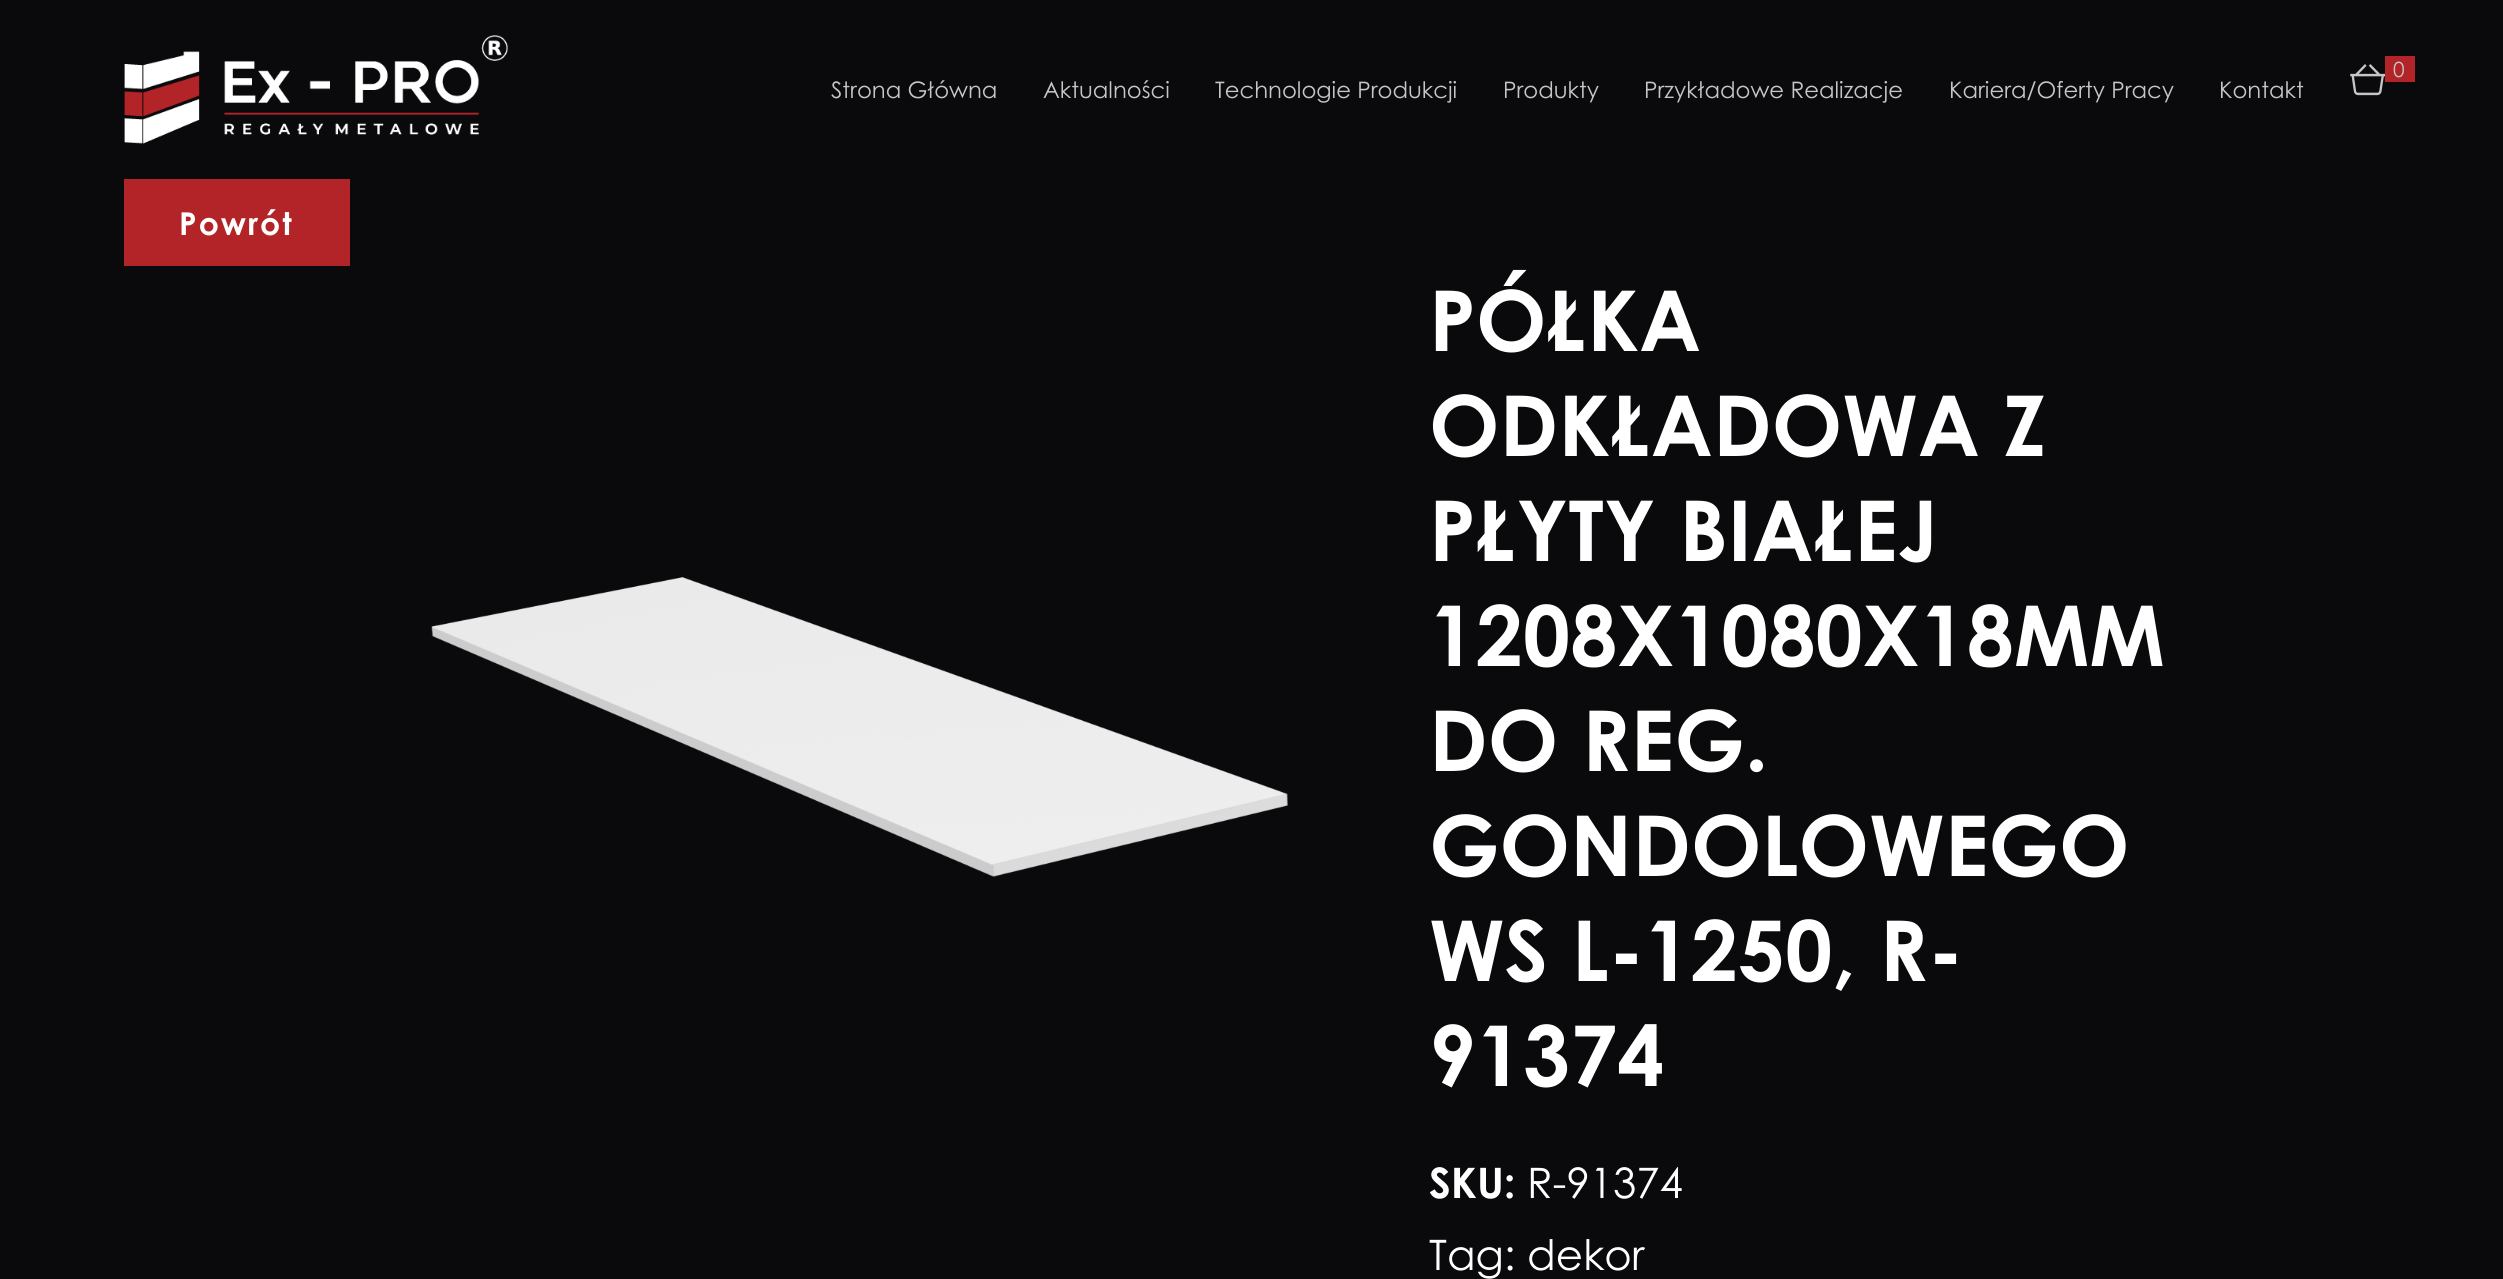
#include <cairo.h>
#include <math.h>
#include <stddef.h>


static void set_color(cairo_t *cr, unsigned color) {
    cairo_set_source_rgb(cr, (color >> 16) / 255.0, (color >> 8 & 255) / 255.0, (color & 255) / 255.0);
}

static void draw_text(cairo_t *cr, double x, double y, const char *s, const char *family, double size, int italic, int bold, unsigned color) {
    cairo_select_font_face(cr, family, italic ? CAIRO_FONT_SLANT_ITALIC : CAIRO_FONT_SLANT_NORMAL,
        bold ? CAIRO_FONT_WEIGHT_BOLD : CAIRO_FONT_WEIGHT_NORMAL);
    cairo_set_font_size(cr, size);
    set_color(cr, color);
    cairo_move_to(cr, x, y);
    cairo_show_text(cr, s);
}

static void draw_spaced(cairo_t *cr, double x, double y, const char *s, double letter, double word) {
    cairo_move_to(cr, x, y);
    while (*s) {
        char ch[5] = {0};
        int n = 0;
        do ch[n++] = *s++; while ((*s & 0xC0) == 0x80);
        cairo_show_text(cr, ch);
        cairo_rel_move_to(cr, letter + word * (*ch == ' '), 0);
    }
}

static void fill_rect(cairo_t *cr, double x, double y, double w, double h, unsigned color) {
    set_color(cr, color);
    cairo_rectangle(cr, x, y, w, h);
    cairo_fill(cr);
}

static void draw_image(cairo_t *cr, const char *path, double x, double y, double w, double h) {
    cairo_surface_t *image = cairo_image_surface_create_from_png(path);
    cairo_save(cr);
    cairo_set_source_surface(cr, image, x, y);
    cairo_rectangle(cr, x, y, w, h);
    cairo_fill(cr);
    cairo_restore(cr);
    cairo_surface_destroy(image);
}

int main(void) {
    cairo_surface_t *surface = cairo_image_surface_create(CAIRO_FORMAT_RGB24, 2503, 1279);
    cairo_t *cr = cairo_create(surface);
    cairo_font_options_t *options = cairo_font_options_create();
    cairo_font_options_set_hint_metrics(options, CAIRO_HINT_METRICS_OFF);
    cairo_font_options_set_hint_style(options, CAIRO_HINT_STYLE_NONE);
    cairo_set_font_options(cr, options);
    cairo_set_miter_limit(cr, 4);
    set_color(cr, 0x0A0A0D);
    cairo_paint(cr);
    draw_image(cr, "assets/img1.png", 124, 35, 384, 109);
    draw_image(cr, "assets/img2.png", 2350, 64, 35, 32);
    fill_rect(cr, 2385, 56, 30, 26, 0xB32428);
    cairo_select_font_face(cr, "Century Gothic", CAIRO_FONT_SLANT_NORMAL, CAIRO_FONT_WEIGHT_NORMAL);
    cairo_set_font_size(cr, 21);
    set_color(cr, 0xC6C6C6);
    draw_spaced(cr, 2393, 77, "0", 1, 0);
    draw_text(cr, 831, 98, "Strona Główna", "Century Gothic", 22.75, 0, 0, 0xC6C6C6);
    draw_text(cr, 1043, 98, "Aktualności", "Century Gothic", 22.75, 0, 0, 0xC6C6C6);
    draw_text(cr, 1215, 98, "Technologie Produkcji", "Century Gothic", 22.75, 0, 0, 0xC6C6C6);
    draw_text(cr, 1503, 98, "Produkty", "Century Gothic", 22.75, 0, 0, 0xC6C6C6);
    draw_text(cr, 1644, 98, "Przykładowe Realizacje", "Century Gothic", 22.75, 0, 0, 0xC6C6C6);
    draw_text(cr, 1949, 98, "Kariera/Oferty Pracy", "Century Gothic", 22.75, 0, 0, 0xC6C6C6);
    draw_text(cr, 2219, 98, "Kontakt", "Century Gothic", 22.75, 0, 0, 0xC6C6C6);
    fill_rect(cr, 124, 179, 226, 87, 0xB32428);
    cairo_select_font_face(cr, "Century Gothic", CAIRO_FONT_SLANT_NORMAL, CAIRO_FONT_WEIGHT_BOLD);
    cairo_set_font_size(cr, 31.5);
    set_color(cr, 0xFFFFFF);
    draw_spaced(cr, 179, 235, "Powrót", 2, 0);
    draw_image(cr, "assets/img3.png", 431, 577, 857, 300);
    draw_text(cr, 1429, 351, "PÓŁKA", "Century Gothic", 84, 0, 1, 0xFFFFFF);
    draw_text(cr, 1429, 456, "ODKŁADOWA Z", "Century Gothic", 84, 0, 1, 0xFFFFFF);
    draw_text(cr, 1429, 561, "PŁYTY BIAŁEJ", "Century Gothic", 84, 0, 1, 0xFFFFFF);
    draw_text(cr, 1429, 666, "1208X1080X18MM", "Century Gothic", 84, 0, 1, 0xFFFFFF);
    draw_text(cr, 1429, 771, "DO REG.", "Century Gothic", 84, 0, 1, 0xFFFFFF);
    draw_text(cr, 1429, 876, "GONDOLOWEGO", "Century Gothic", 84, 0, 1, 0xFFFFFF);
    draw_text(cr, 1429, 981, "WS L-1250, R-", "Century Gothic", 84, 0, 1, 0xFFFFFF);
    draw_text(cr, 1429, 1086, "91374", "Century Gothic", 84, 0, 1, 0xFFFFFF);
    draw_text(cr, 1429, 1198, "SKU:", "Century Gothic", 42, 0, 1, 0xFFFFFF);
    draw_text(cr, 1527, 1198, "R-91374", "Century Gothic", 42, 0, 0, 0xFFFFFF);
    draw_text(cr, 1429, 1270, "Tag: dekor", "Century Gothic", 42, 0, 0, 0xFFFFFF);
    cairo_surface_write_to_png(surface, "output.png");
    cairo_font_options_destroy(options);
    cairo_destroy(cr);
    cairo_surface_destroy(surface);
    return 0;
}
